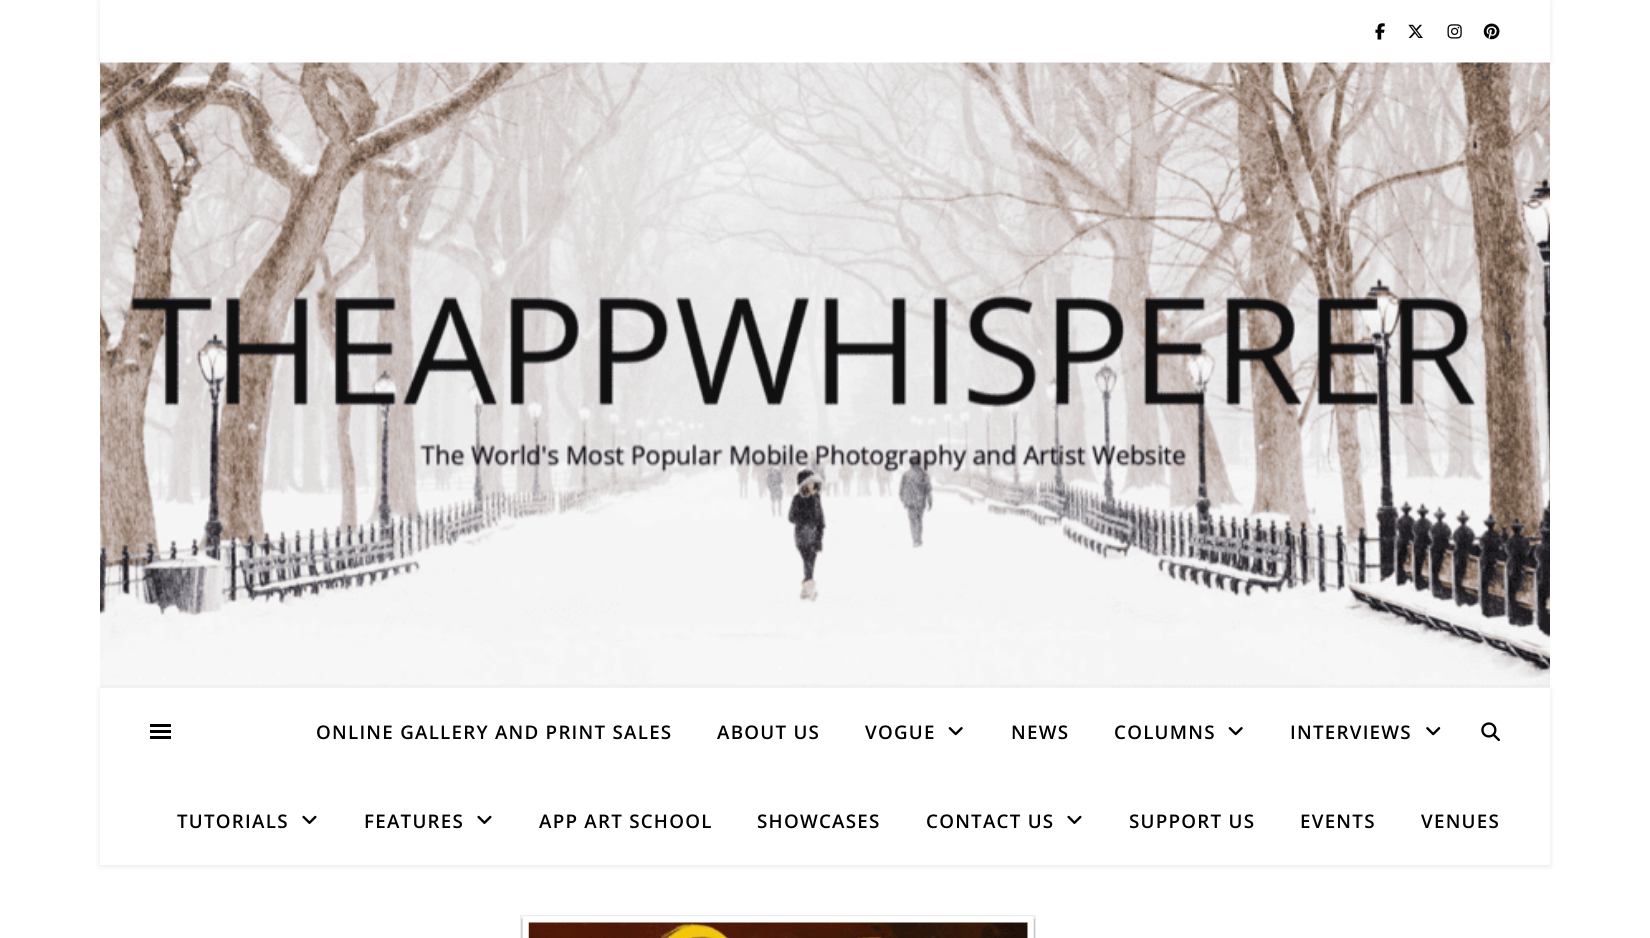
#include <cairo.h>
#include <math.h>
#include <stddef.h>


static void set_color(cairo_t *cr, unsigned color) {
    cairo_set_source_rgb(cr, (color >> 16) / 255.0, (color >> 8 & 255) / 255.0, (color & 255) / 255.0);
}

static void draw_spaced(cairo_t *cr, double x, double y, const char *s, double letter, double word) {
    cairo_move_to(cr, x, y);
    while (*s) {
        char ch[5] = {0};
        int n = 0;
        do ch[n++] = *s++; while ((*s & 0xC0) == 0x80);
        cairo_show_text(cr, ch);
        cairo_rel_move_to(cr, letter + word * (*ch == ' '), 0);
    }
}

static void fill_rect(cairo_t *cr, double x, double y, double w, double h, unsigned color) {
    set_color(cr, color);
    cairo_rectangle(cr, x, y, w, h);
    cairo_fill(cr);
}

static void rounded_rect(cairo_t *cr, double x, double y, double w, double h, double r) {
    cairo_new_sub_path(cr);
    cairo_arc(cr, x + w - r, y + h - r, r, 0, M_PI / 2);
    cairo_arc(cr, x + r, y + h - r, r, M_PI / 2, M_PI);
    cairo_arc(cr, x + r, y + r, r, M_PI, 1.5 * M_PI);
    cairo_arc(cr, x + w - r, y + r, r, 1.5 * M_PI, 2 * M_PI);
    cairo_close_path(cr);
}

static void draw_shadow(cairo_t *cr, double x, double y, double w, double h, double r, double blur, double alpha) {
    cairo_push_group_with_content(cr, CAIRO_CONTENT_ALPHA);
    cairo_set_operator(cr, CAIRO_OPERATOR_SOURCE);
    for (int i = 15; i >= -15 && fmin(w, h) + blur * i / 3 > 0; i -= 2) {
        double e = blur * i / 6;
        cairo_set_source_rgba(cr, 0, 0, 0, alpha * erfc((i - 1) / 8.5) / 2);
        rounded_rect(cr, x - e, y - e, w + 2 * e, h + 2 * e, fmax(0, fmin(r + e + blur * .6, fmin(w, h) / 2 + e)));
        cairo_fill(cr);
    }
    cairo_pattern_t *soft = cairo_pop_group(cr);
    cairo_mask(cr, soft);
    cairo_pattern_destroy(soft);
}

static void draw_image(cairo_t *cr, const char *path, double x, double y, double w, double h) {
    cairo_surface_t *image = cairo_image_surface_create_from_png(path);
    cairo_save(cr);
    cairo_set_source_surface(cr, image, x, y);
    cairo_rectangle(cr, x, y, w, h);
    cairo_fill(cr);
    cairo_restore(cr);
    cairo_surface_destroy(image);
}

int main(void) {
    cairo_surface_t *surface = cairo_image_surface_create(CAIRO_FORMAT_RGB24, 1650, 938);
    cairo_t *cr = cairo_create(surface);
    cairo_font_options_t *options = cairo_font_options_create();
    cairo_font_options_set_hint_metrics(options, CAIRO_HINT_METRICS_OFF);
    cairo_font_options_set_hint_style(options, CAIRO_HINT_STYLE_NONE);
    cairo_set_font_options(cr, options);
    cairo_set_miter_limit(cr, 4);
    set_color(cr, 0xFFFFFF);
    cairo_paint(cr);
    set_color(cr, 0x000000);
    draw_shadow(cr, 100, 1, 1450, 63, 0, 3, 0.1);
    fill_rect(cr, 100, 0, 1450, 63, 0xFFFFFF);
    draw_image(cr, "assets/img1.png", 1375, 23, 10, 17);
    draw_image(cr, "assets/img2.png", 1408, 24, 15, 14);
    draw_image(cr, "assets/img3.png", 1447, 24, 15, 15);
    draw_image(cr, "assets/img4.png", 1483, 23, 17, 17);
    draw_image(cr, "assets/img5.png", 100, 62, 1450, 626);
    cairo_save(cr);
    cairo_set_fill_rule(cr, CAIRO_FILL_RULE_EVEN_ODD);
    cairo_new_path(cr);
    cairo_move_to(cr, 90, 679);
    cairo_line_to(cr, 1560, 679);
    cairo_line_to(cr, 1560, 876);
    cairo_line_to(cr, 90, 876);
    cairo_close_path(cr);
    cairo_move_to(cr, 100, 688);
    cairo_line_to(cr, 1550, 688);
    cairo_line_to(cr, 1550, 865);
    cairo_line_to(cr, 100, 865);
    cairo_close_path(cr);
    cairo_clip(cr);
    set_color(cr, 0x000000);
    draw_shadow(cr, 100, 689, 1450, 177, 0, 3, 0.1);
    cairo_restore(cr);
    fill_rect(cr, 150, 724, 21, 3, 0x000000);
    fill_rect(cr, 150, 730, 21, 3, 0x000000);
    fill_rect(cr, 150, 736, 21, 3, 0x000000);
    draw_image(cr, "assets/img6.png", 1481, 722, 19, 20);
    cairo_select_font_face(cr, "Open Sans SemiBold", CAIRO_FONT_SLANT_NORMAL, CAIRO_FONT_WEIGHT_NORMAL);
    cairo_set_font_size(cr, 18.75);
    draw_spaced(cr, 316, 739, "ONLINE GALLERY AND PRINT SALES", 1.25, 0);
    draw_spaced(cr, 717, 739, "ABOUT US", 1.25, 0);
    draw_spaced(cr, 865, 739, "VOGUE", 1.25, 0);
    draw_image(cr, "assets/img7.png", 948, 727, 15, 9);
    draw_spaced(cr, 1011, 739, "NEWS", 1.25, 0);
    draw_spaced(cr, 1114, 739, "COLUMNS", 1.25, 0);
    draw_image(cr, "assets/img7.png", 1228, 727, 15, 9);
    draw_spaced(cr, 1290, 739, "INTERVIEWS", 1.25, 0);
    draw_image(cr, "assets/img8.png", 1426, 727, 15, 9);
    draw_spaced(cr, 177, 828, "TUTORIALS", 1.25, 0);
    draw_image(cr, "assets/img9.png", 302, 815, 15, 9);
    draw_spaced(cr, 364, 828, "FEATURES", 1.25, 0);
    draw_image(cr, "assets/img9.png", 477, 815, 15, 9);
    draw_spaced(cr, 539, 828, "APP ART SCHOOL", 1.25, 0);
    draw_spaced(cr, 757, 828, "SHOWCASES", 1.25, 0);
    draw_spaced(cr, 926, 828, "CONTACT US", 1.25, 0);
    draw_image(cr, "assets/img9.png", 1067, 815, 15, 9);
    draw_spaced(cr, 1129, 828, "SUPPORT US", 1.25, 0);
    draw_spaced(cr, 1300, 828, "EVENTS", 1.25, 0);
    draw_spaced(cr, 1421, 828, "VENUES", 1.25, 0);
    draw_image(cr, "assets/img10.png", 520, 915, 516, 23);
    cairo_surface_write_to_png(surface, "output.png");
    cairo_font_options_destroy(options);
    cairo_destroy(cr);
    cairo_surface_destroy(surface);
    return 0;
}
